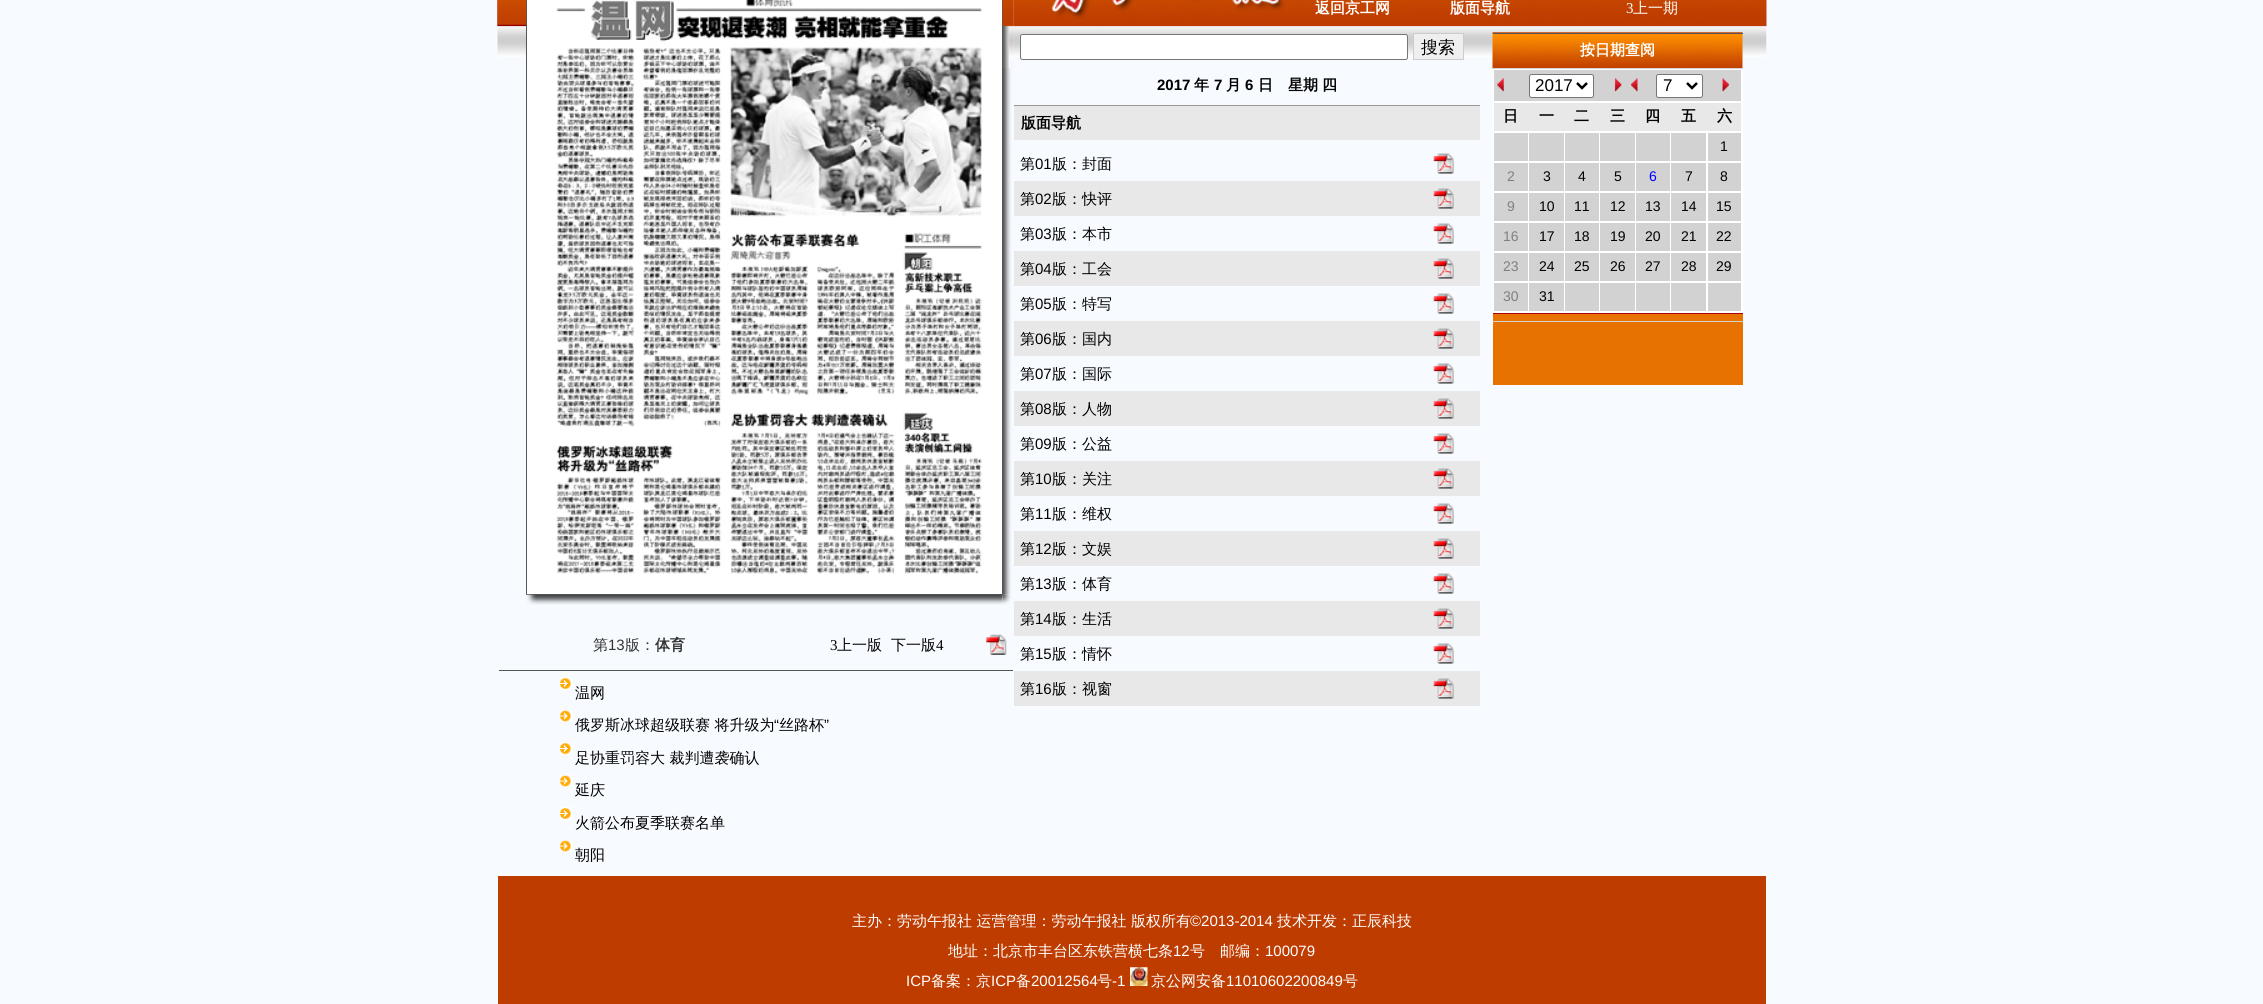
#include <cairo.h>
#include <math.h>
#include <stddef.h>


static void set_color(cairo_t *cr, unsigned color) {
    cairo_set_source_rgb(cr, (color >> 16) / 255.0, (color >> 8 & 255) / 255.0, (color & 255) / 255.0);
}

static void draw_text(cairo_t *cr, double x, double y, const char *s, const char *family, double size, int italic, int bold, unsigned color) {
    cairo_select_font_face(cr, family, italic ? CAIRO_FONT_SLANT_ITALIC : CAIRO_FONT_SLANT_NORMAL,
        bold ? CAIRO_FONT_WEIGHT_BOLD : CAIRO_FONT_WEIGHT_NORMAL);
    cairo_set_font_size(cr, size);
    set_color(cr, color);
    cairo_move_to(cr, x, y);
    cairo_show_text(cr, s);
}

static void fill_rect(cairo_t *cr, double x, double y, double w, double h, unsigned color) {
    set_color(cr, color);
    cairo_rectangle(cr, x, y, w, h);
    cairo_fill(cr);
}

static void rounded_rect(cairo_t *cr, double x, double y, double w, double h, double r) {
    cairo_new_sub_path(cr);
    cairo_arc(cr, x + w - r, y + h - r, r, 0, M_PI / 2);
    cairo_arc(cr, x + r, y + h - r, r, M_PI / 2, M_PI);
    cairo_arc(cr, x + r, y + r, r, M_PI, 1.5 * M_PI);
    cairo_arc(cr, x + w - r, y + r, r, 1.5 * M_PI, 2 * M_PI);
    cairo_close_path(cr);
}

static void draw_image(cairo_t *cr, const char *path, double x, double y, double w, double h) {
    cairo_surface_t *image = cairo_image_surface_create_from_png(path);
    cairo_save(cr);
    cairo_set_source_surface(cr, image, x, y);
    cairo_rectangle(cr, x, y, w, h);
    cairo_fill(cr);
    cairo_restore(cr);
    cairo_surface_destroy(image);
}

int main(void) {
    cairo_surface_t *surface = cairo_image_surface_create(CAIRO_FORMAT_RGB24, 2263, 1004);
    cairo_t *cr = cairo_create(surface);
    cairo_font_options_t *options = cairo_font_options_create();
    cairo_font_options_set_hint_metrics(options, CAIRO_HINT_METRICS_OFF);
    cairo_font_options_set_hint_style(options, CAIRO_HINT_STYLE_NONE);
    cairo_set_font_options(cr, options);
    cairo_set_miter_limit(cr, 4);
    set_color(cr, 0xF7FAFF);
    cairo_paint(cr);
    draw_image(cr, "assets/img1.png", 497, 0, 1270, 57);
    draw_image(cr, "assets/img2.png", 1013, 0, 754, 26);
    draw_text(cr, 1315, 13, "返回京工网", "WenQuanYi Zen Hei", 15, 0, 1, 0xFFFFFF);
    draw_text(cr, 1450, 13, "版面导航", "WenQuanYi Zen Hei", 15, 0, 1, 0xFFFFFF);
    draw_text(cr, 1626, 13, "3", "Liberation Serif", 15, 0, 0, 0xFFFFFF);
    draw_text(cr, 1633, 13, "上一期", "WenQuanYi Zen Hei Medium", 15, 0, 0, 0xFFFFFF);
    rounded_rect(cr, 1020.5, 34.5, 387, 25, 2);
    cairo_fill_preserve(cr);
    set_color(cr, 0x767676);
    cairo_set_line_width(cr, 1);
    cairo_stroke(cr);
    set_color(cr, 0xEFEFEF);
    cairo_rectangle(cr, 1413.5, 33.5, 50, 26);
    cairo_fill_preserve(cr);
    set_color(cr, 0xCCCCCC);
    cairo_stroke(cr);
    draw_text(cr, 1421, 53, "搜索", "WenQuanYi Zen Hei Medium", 17, 0, 0, 0x000000);
    draw_text(cr, 1157, 90, "2017", "Liberation Sans", 15, 0, 1, 0x000000);
    draw_text(cr, 1194, 90, "年", "WenQuanYi Zen Hei", 15, 0, 1, 0x000000);
    draw_text(cr, 1214, 90, "7", "Liberation Sans", 15, 0, 1, 0x000000);
    draw_text(cr, 1226, 90, "月", "WenQuanYi Zen Hei", 15, 0, 1, 0x000000);
    draw_text(cr, 1245, 90, "6", "Liberation Sans", 15, 0, 1, 0x000000);
    draw_text(cr, 1258, 90, "日　星期", "WenQuanYi Zen Hei", 15, 0, 1, 0x000000);
    draw_text(cr, 1322, 90, "四", "WenQuanYi Zen Hei", 15, 0, 1, 0x000000);
    fill_rect(cr, 1014, 105, 466, 1, 0x999999);
    fill_rect(cr, 1014, 106, 466, 34, 0xE8E8E8);
    draw_text(cr, 1021, 128, "版面导航", "WenQuanYi Zen Hei", 15, 0, 1, 0x000000);
    draw_text(cr, 1020, 169, "第", "WenQuanYi Zen Hei Medium", 15, 0, 0, 0x000000);
    draw_text(cr, 1035, 169, "01", "Liberation Sans", 15, 0, 0, 0x000000);
    draw_text(cr, 1052, 169, "版：封面", "WenQuanYi Zen Hei Medium", 15, 0, 0, 0x000000);
    draw_image(cr, "assets/img3.png", 1433, 153, 21, 21);
    fill_rect(cr, 1014, 181, 466, 35, 0xE8E8E8);
    draw_text(cr, 1020, 204, "第", "WenQuanYi Zen Hei Medium", 15, 0, 0, 0x000000);
    draw_text(cr, 1035, 204, "02", "Liberation Sans", 15, 0, 0, 0x000000);
    draw_text(cr, 1052, 204, "版：快评", "WenQuanYi Zen Hei Medium", 15, 0, 0, 0x000000);
    draw_image(cr, "assets/img4.png", 1433, 188, 21, 21);
    draw_text(cr, 1020, 239, "第", "WenQuanYi Zen Hei Medium", 15, 0, 0, 0x000000);
    draw_text(cr, 1035, 239, "03", "Liberation Sans", 15, 0, 0, 0x000000);
    draw_text(cr, 1052, 239, "版：本市", "WenQuanYi Zen Hei Medium", 15, 0, 0, 0x000000);
    draw_image(cr, "assets/img3.png", 1433, 223, 21, 21);
    fill_rect(cr, 1014, 251, 466, 35, 0xE8E8E8);
    draw_text(cr, 1020, 274, "第", "WenQuanYi Zen Hei Medium", 15, 0, 0, 0x000000);
    draw_text(cr, 1035, 274, "04", "Liberation Sans", 15, 0, 0, 0x000000);
    draw_text(cr, 1052, 274, "版：工会", "WenQuanYi Zen Hei Medium", 15, 0, 0, 0x000000);
    draw_image(cr, "assets/img5.png", 1433, 258, 21, 21);
    draw_text(cr, 1020, 309, "第", "WenQuanYi Zen Hei Medium", 15, 0, 0, 0x000000);
    draw_text(cr, 1035, 309, "05", "Liberation Sans", 15, 0, 0, 0x000000);
    draw_text(cr, 1052, 309, "版：特写", "WenQuanYi Zen Hei Medium", 15, 0, 0, 0x000000);
    draw_image(cr, "assets/img3.png", 1433, 293, 21, 21);
    fill_rect(cr, 1014, 321, 466, 35, 0xE8E8E8);
    draw_text(cr, 1020, 344, "第", "WenQuanYi Zen Hei Medium", 15, 0, 0, 0x000000);
    draw_text(cr, 1035, 344, "06", "Liberation Sans", 15, 0, 0, 0x000000);
    draw_text(cr, 1052, 344, "版：国内", "WenQuanYi Zen Hei Medium", 15, 0, 0, 0x000000);
    draw_image(cr, "assets/img5.png", 1433, 328, 21, 21);
    draw_text(cr, 1020, 379, "第", "WenQuanYi Zen Hei Medium", 15, 0, 0, 0x000000);
    draw_text(cr, 1035, 379, "07", "Liberation Sans", 15, 0, 0, 0x000000);
    draw_text(cr, 1052, 379, "版：国际", "WenQuanYi Zen Hei Medium", 15, 0, 0, 0x000000);
    draw_image(cr, "assets/img3.png", 1433, 363, 21, 21);
    fill_rect(cr, 1014, 391, 466, 35, 0xE8E8E8);
    draw_text(cr, 1020, 414, "第", "WenQuanYi Zen Hei Medium", 15, 0, 0, 0x000000);
    draw_text(cr, 1035, 414, "08", "Liberation Sans", 15, 0, 0, 0x000000);
    draw_text(cr, 1052, 414, "版：人物", "WenQuanYi Zen Hei Medium", 15, 0, 0, 0x000000);
    draw_image(cr, "assets/img5.png", 1433, 398, 21, 21);
    draw_text(cr, 1020, 449, "第", "WenQuanYi Zen Hei Medium", 15, 0, 0, 0x000000);
    draw_text(cr, 1035, 449, "09", "Liberation Sans", 15, 0, 0, 0x000000);
    draw_text(cr, 1052, 449, "版：公益", "WenQuanYi Zen Hei Medium", 15, 0, 0, 0x000000);
    draw_image(cr, "assets/img3.png", 1433, 433, 21, 21);
    fill_rect(cr, 1014, 461, 466, 35, 0xE8E8E8);
    draw_text(cr, 1020, 484, "第", "WenQuanYi Zen Hei Medium", 15, 0, 0, 0x000000);
    draw_text(cr, 1035, 484, "10", "Liberation Sans", 15, 0, 0, 0x000000);
    draw_text(cr, 1052, 484, "版：关注", "WenQuanYi Zen Hei Medium", 15, 0, 0, 0x000000);
    draw_image(cr, "assets/img5.png", 1433, 468, 21, 21);
    draw_text(cr, 1020, 519, "第", "WenQuanYi Zen Hei Medium", 15, 0, 0, 0x000000);
    draw_text(cr, 1035, 519, "11", "Liberation Sans", 15, 0, 0, 0x000000);
    draw_text(cr, 1052, 519, "版：维权", "WenQuanYi Zen Hei Medium", 15, 0, 0, 0x000000);
    draw_image(cr, "assets/img3.png", 1433, 503, 21, 21);
    fill_rect(cr, 1014, 531, 466, 35, 0xE8E8E8);
    draw_text(cr, 1020, 554, "第", "WenQuanYi Zen Hei Medium", 15, 0, 0, 0x000000);
    draw_text(cr, 1035, 554, "12", "Liberation Sans", 15, 0, 0, 0x000000);
    draw_text(cr, 1052, 554, "版：文娱", "WenQuanYi Zen Hei Medium", 15, 0, 0, 0x000000);
    draw_image(cr, "assets/img5.png", 1433, 538, 21, 21);
    draw_text(cr, 1020, 589, "第", "WenQuanYi Zen Hei Medium", 15, 0, 0, 0x000000);
    draw_text(cr, 1035, 589, "13", "Liberation Sans", 15, 0, 0, 0x000000);
    draw_text(cr, 1052, 589, "版：体育", "WenQuanYi Zen Hei Medium", 15, 0, 0, 0x000000);
    draw_image(cr, "assets/img3.png", 1433, 573, 21, 21);
    fill_rect(cr, 1014, 601, 466, 35, 0xE8E8E8);
    draw_text(cr, 1020, 624, "第", "WenQuanYi Zen Hei Medium", 15, 0, 0, 0x000000);
    draw_text(cr, 1035, 624, "14", "Liberation Sans", 15, 0, 0, 0x000000);
    draw_text(cr, 1052, 624, "版：生活", "WenQuanYi Zen Hei Medium", 15, 0, 0, 0x000000);
    draw_image(cr, "assets/img5.png", 1433, 608, 21, 21);
    draw_text(cr, 1020, 659, "第", "WenQuanYi Zen Hei Medium", 15, 0, 0, 0x000000);
    draw_text(cr, 1035, 659, "15", "Liberation Sans", 15, 0, 0, 0x000000);
    draw_text(cr, 1052, 659, "版：情怀", "WenQuanYi Zen Hei Medium", 15, 0, 0, 0x000000);
    draw_image(cr, "assets/img3.png", 1433, 643, 21, 21);
    fill_rect(cr, 1014, 671, 466, 35, 0xE8E8E8);
    draw_text(cr, 1020, 694, "第", "WenQuanYi Zen Hei Medium", 15, 0, 0, 0x000000);
    draw_text(cr, 1035, 694, "16", "Liberation Sans", 15, 0, 0, 0x000000);
    draw_text(cr, 1052, 694, "版：视窗", "WenQuanYi Zen Hei Medium", 15, 0, 0, 0x000000);
    draw_image(cr, "assets/img6.png", 1433, 678, 21, 21);
    draw_image(cr, "assets/img7.png", 1492, 32, 251, 37);
    fill_rect(cr, 1493, 33, 250, 1, 0x555555);
    fill_rect(cr, 1493, 68, 250, 1, 0xD2D2D2);
    draw_text(cr, 1580, 55, "按日期查阅", "WenQuanYi Zen Hei", 15, 0, 1, 0xFFFFFF);
    fill_rect(cr, 1493, 69, 250, 244, 0xFFFFFF);
    fill_rect(cr, 1494, 70, 247, 31, 0xD2D2D2);
    draw_image(cr, "assets/img8.png", 1497, 78, 7, 14);
    set_color(cr, 0xFFFFFF);
    rounded_rect(cr, 1529.5, 74.5, 64, 23, 2);
    cairo_fill_preserve(cr);
    set_color(cr, 0x767676);
    cairo_stroke(cr);
    cairo_new_path(cr);
    cairo_move_to(cr, 1577, 83);
    cairo_line_to(cr, 1582, 88);
    cairo_line_to(cr, 1587, 83);
    set_color(cr, 0x000000);
    cairo_set_line_width(cr, 2.5);
    cairo_stroke(cr);
    draw_text(cr, 1535, 91, "2017", "Liberation Sans", 17, 0, 0, 0x000000);
    draw_image(cr, "assets/img9.png", 1614, 78, 8, 14);
    draw_image(cr, "assets/img10.png", 1631, 78, 7, 14);
    set_color(cr, 0xFFFFFF);
    rounded_rect(cr, 1656.5, 74.5, 46, 23, 2);
    cairo_fill_preserve(cr);
    set_color(cr, 0x767676);
    cairo_set_line_width(cr, 1);
    cairo_stroke(cr);
    cairo_new_path(cr);
    cairo_move_to(cr, 1687, 83);
    cairo_line_to(cr, 1692, 88);
    cairo_line_to(cr, 1697, 83);
    set_color(cr, 0x000000);
    cairo_set_line_width(cr, 2.5);
    cairo_stroke(cr);
    draw_text(cr, 1663, 91, "7", "Liberation Sans", 17, 0, 0, 0x000000);
    draw_image(cr, "assets/img11.png", 1722, 78, 7, 14);
    fill_rect(cr, 1494, 103, 247, 28, 0xE8E8E8);
    draw_text(cr, 1503, 121, "日", "WenQuanYi Zen Hei", 15, 0, 1, 0x000000);
    draw_text(cr, 1539, 121, "一", "WenQuanYi Zen Hei", 15, 0, 1, 0x000000);
    draw_text(cr, 1574, 121, "二", "WenQuanYi Zen Hei", 15, 0, 1, 0x000000);
    draw_text(cr, 1610, 121, "三", "WenQuanYi Zen Hei", 15, 0, 1, 0x000000);
    draw_text(cr, 1645, 121, "四", "WenQuanYi Zen Hei", 15, 0, 1, 0x000000);
    draw_text(cr, 1681, 121, "五", "WenQuanYi Zen Hei", 15, 0, 1, 0x000000);
    draw_text(cr, 1717, 121, "六", "WenQuanYi Zen Hei", 15, 0, 1, 0x000000);
    fill_rect(cr, 1494, 133, 34, 28, 0xD2D2D2);
    fill_rect(cr, 1529, 133, 35, 28, 0xD2D2D2);
    fill_rect(cr, 1565, 133, 34, 28, 0xD2D2D2);
    fill_rect(cr, 1600, 133, 35, 28, 0xD2D2D2);
    fill_rect(cr, 1636, 133, 34, 28, 0xD2D2D2);
    fill_rect(cr, 1671, 133, 35, 28, 0xD2D2D2);
    fill_rect(cr, 1708, 133, 33, 28, 0xD2D2D2);
    draw_text(cr, 1720, 151, "1", "Liberation Sans", 14, 0, 0, 0x000000);
    fill_rect(cr, 1494, 163, 34, 28, 0xD2D2D2);
    draw_text(cr, 1507, 181, "2", "Liberation Sans", 14, 0, 0, 0x808080);
    fill_rect(cr, 1529, 163, 35, 28, 0xD2D2D2);
    draw_text(cr, 1543, 181, "3", "Liberation Sans", 14, 0, 0, 0x000000);
    fill_rect(cr, 1565, 163, 34, 28, 0xD2D2D2);
    draw_text(cr, 1578, 181, "4", "Liberation Sans", 14, 0, 0, 0x000000);
    fill_rect(cr, 1600, 163, 35, 28, 0xD2D2D2);
    draw_text(cr, 1614, 181, "5", "Liberation Sans", 14, 0, 0, 0x000000);
    fill_rect(cr, 1636, 163, 34, 28, 0xD2D2D2);
    draw_text(cr, 1649, 181, "6", "Liberation Sans", 14, 0, 0, 0x0000FF);
    fill_rect(cr, 1671, 163, 35, 28, 0xD2D2D2);
    draw_text(cr, 1685, 181, "7", "Liberation Sans", 14, 0, 0, 0x000000);
    fill_rect(cr, 1708, 163, 33, 28, 0xD2D2D2);
    draw_text(cr, 1720, 181, "8", "Liberation Sans", 14, 0, 0, 0x000000);
    fill_rect(cr, 1494, 193, 34, 28, 0xD2D2D2);
    draw_text(cr, 1507, 211, "9", "Liberation Sans", 14, 0, 0, 0x808080);
    fill_rect(cr, 1529, 193, 35, 28, 0xD2D2D2);
    draw_text(cr, 1539, 211, "10", "Liberation Sans", 14, 0, 0, 0x000000);
    fill_rect(cr, 1565, 193, 34, 28, 0xD2D2D2);
    draw_text(cr, 1574, 211, "11", "Liberation Sans", 14, 0, 0, 0x000000);
    fill_rect(cr, 1600, 193, 35, 28, 0xD2D2D2);
    draw_text(cr, 1610, 211, "12", "Liberation Sans", 14, 0, 0, 0x000000);
    fill_rect(cr, 1636, 193, 34, 28, 0xD2D2D2);
    draw_text(cr, 1645, 211, "13", "Liberation Sans", 14, 0, 0, 0x000000);
    fill_rect(cr, 1671, 193, 35, 28, 0xD2D2D2);
    draw_text(cr, 1681, 211, "14", "Liberation Sans", 14, 0, 0, 0x000000);
    fill_rect(cr, 1708, 193, 33, 28, 0xD2D2D2);
    draw_text(cr, 1716, 211, "15", "Liberation Sans", 14, 0, 0, 0x000000);
    fill_rect(cr, 1494, 223, 34, 28, 0xD2D2D2);
    draw_text(cr, 1503, 241, "16", "Liberation Sans", 14, 0, 0, 0x808080);
    fill_rect(cr, 1529, 223, 35, 28, 0xD2D2D2);
    draw_text(cr, 1539, 241, "17", "Liberation Sans", 14, 0, 0, 0x000000);
    fill_rect(cr, 1565, 223, 34, 28, 0xD2D2D2);
    draw_text(cr, 1574, 241, "18", "Liberation Sans", 14, 0, 0, 0x000000);
    fill_rect(cr, 1600, 223, 35, 28, 0xD2D2D2);
    draw_text(cr, 1610, 241, "19", "Liberation Sans", 14, 0, 0, 0x000000);
    fill_rect(cr, 1636, 223, 34, 28, 0xD2D2D2);
    draw_text(cr, 1645, 241, "20", "Liberation Sans", 14, 0, 0, 0x000000);
    fill_rect(cr, 1671, 223, 35, 28, 0xD2D2D2);
    draw_text(cr, 1681, 241, "21", "Liberation Sans", 14, 0, 0, 0x000000);
    fill_rect(cr, 1708, 223, 33, 28, 0xD2D2D2);
    draw_text(cr, 1716, 241, "22", "Liberation Sans", 14, 0, 0, 0x000000);
    fill_rect(cr, 1494, 253, 34, 28, 0xD2D2D2);
    draw_text(cr, 1503, 271, "23", "Liberation Sans", 14, 0, 0, 0x808080);
    fill_rect(cr, 1529, 253, 35, 28, 0xD2D2D2);
    draw_text(cr, 1539, 271, "24", "Liberation Sans", 14, 0, 0, 0x000000);
    fill_rect(cr, 1565, 253, 34, 28, 0xD2D2D2);
    draw_text(cr, 1574, 271, "25", "Liberation Sans", 14, 0, 0, 0x000000);
    fill_rect(cr, 1600, 253, 35, 28, 0xD2D2D2);
    draw_text(cr, 1610, 271, "26", "Liberation Sans", 14, 0, 0, 0x000000);
    fill_rect(cr, 1636, 253, 34, 28, 0xD2D2D2);
    draw_text(cr, 1645, 271, "27", "Liberation Sans", 14, 0, 0, 0x000000);
    fill_rect(cr, 1671, 253, 35, 28, 0xD2D2D2);
    draw_text(cr, 1681, 271, "28", "Liberation Sans", 14, 0, 0, 0x000000);
    fill_rect(cr, 1708, 253, 33, 28, 0xD2D2D2);
    draw_text(cr, 1716, 271, "29", "Liberation Sans", 14, 0, 0, 0x000000);
    fill_rect(cr, 1494, 283, 34, 28, 0xD2D2D2);
    draw_text(cr, 1503, 301, "30", "Liberation Sans", 14, 0, 0, 0x808080);
    fill_rect(cr, 1529, 283, 35, 28, 0xD2D2D2);
    draw_text(cr, 1539, 301, "31", "Liberation Sans", 14, 0, 0, 0x000000);
    fill_rect(cr, 1565, 283, 34, 28, 0xD2D2D2);
    fill_rect(cr, 1600, 283, 35, 28, 0xD2D2D2);
    fill_rect(cr, 1636, 283, 34, 28, 0xD2D2D2);
    fill_rect(cr, 1671, 283, 35, 28, 0xD2D2D2);
    fill_rect(cr, 1708, 283, 33, 28, 0xD2D2D2);
    fill_rect(cr, 1493, 314, 250, 71, 0xE77200);
    fill_rect(cr, 1493, 313, 250, 1, 0xA90110);
    fill_rect(cr, 1493, 321, 250, 1, 0xD2D2D2);
    set_color(cr, 0xFFFFFF);
    cairo_rectangle(cr, 526.5, -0.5, 476, 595);
    cairo_fill_preserve(cr);
    set_color(cr, 0x555555);
    cairo_set_line_width(cr, 1);
    cairo_stroke(cr);
    draw_image(cr, "assets/img12.png", 556, 0, 426, 574);
    draw_image(cr, "assets/img13.png", 497, 0, 30, 26);
    draw_image(cr, "assets/img14.png", 1003, 0, 11, 595);
    draw_image(cr, "assets/img15.png", 1002, 0, 12, 69);
    draw_image(cr, "assets/img16.png", 526, 594, 477, 11);
    draw_image(cr, "assets/img17.png", 1002, 594, 9, 11);
    draw_text(cr, 593, 650, "第", "WenQuanYi Zen Hei Medium", 15, 0, 0, 0x333333);
    draw_text(cr, 608, 650, "13", "Liberation Sans", 15, 0, 0, 0x333333);
    draw_text(cr, 625, 650, "版：", "WenQuanYi Zen Hei Medium", 15, 0, 0, 0x333333);
    draw_text(cr, 655, 650, "体育", "WenQuanYi Zen Hei", 15, 0, 1, 0x333333);
    draw_text(cr, 830, 650, "3", "Liberation Serif", 15, 0, 0, 0x000000);
    draw_text(cr, 837, 650, "上一版", "WenQuanYi Zen Hei Medium", 15, 0, 0, 0x000000);
    draw_text(cr, 891, 650, "下一版", "WenQuanYi Zen Hei Medium", 15, 0, 0, 0x000000);
    draw_text(cr, 936, 650, "4", "Liberation Serif", 15, 0, 0, 0x000000);
    draw_image(cr, "assets/img18.png", 986, 634, 21, 21);
    fill_rect(cr, 499, 670, 514, 1, 0x555555);
    draw_image(cr, "assets/img19.png", 560, 677, 13, 13);
    draw_text(cr, 575, 698, "温网", "WenQuanYi Zen Hei Medium", 15, 0, 0, 0x000000);
    draw_image(cr, "assets/img20.png", 560, 710, 13, 12);
    draw_text(cr, 575, 730, "俄罗斯冰球超级联赛 将升级为", "WenQuanYi Zen Hei Medium", 15, 0, 0, 0x000000);
    draw_text(cr, 774, 730, "“", "Liberation Sans", 15, 0, 0, 0x000000);
    draw_text(cr, 779, 730, "丝路杯", "WenQuanYi Zen Hei Medium", 15, 0, 0, 0x000000);
    draw_text(cr, 824, 730, "”", "Liberation Sans", 15, 0, 0, 0x000000);
    draw_image(cr, "assets/img19.png", 560, 742, 13, 13);
    draw_text(cr, 575, 763, "足协重罚容大 裁判遭袭确认", "WenQuanYi Zen Hei Medium", 15, 0, 0, 0x000000);
    draw_image(cr, "assets/img20.png", 560, 775, 13, 12);
    draw_text(cr, 575, 795, "延庆", "WenQuanYi Zen Hei Medium", 15, 0, 0, 0x000000);
    draw_image(cr, "assets/img19.png", 560, 807, 13, 13);
    draw_text(cr, 575, 828, "火箭公布夏季联赛名单", "WenQuanYi Zen Hei Medium", 15, 0, 0, 0x000000);
    draw_image(cr, "assets/img20.png", 560, 840, 13, 12);
    draw_text(cr, 575, 860, "朝阳", "WenQuanYi Zen Hei Medium", 15, 0, 0, 0x000000);
    fill_rect(cr, 498, 876, 1268, 128, 0xBE3C00);
    draw_text(cr, 852, 926, "主办：劳动午报社 运营管理：劳动午报社 版权所有", "WenQuanYi Zen Hei Medium", 15, 0, 0, 0xFFFFFF);
    draw_text(cr, 1190, 926, "©2013-2014", "Liberation Sans", 15, 0, 0, 0xFFFFFF);
    draw_text(cr, 1277, 926, "技术开发：正辰科技", "WenQuanYi Zen Hei Medium", 15, 0, 0, 0xFFFFFF);
    draw_text(cr, 948, 956, "地址：北京市丰台区东铁营横七条", "WenQuanYi Zen Hei Medium", 15, 0, 0, 0xFFFFFF);
    draw_text(cr, 1173, 956, "12", "Liberation Sans", 15, 0, 0, 0xFFFFFF);
    draw_text(cr, 1190, 956, "号　邮编：", "WenQuanYi Zen Hei Medium", 15, 0, 0, 0xFFFFFF);
    draw_text(cr, 1265, 956, "100079", "Liberation Sans", 15, 0, 0, 0xFFFFFF);
    draw_text(cr, 906, 986, "ICP", "Liberation Sans", 15, 0, 0, 0xFFFFFF);
    draw_text(cr, 931, 986, "备案：京", "WenQuanYi Zen Hei Medium", 15, 0, 0, 0xFFFFFF);
    draw_text(cr, 991, 986, "ICP", "Liberation Sans", 15, 0, 0, 0xFFFFFF);
    draw_text(cr, 1016, 986, "备", "WenQuanYi Zen Hei Medium", 15, 0, 0, 0xFFFFFF);
    draw_text(cr, 1031, 986, "20012564", "Liberation Sans", 15, 0, 0, 0xFFFFFF);
    draw_text(cr, 1097, 986, "号", "WenQuanYi Zen Hei Medium", 15, 0, 0, 0xFFFFFF);
    draw_text(cr, 1112, 986, "-1", "Liberation Sans", 15, 0, 0, 0xFFFFFF);
    draw_image(cr, "assets/img21.png", 1130, 967, 18, 19);
    draw_text(cr, 1151, 986, "京公网安备", "WenQuanYi Zen Hei Medium", 15, 0, 0, 0xFFFFFF);
    draw_text(cr, 1226, 986, "11010602200849", "Liberation Sans", 15, 0, 0, 0xFFFFFF);
    draw_text(cr, 1343, 986, "号", "WenQuanYi Zen Hei Medium", 15, 0, 0, 0xFFFFFF);
    cairo_surface_write_to_png(surface, "output.png");
    cairo_font_options_destroy(options);
    cairo_destroy(cr);
    cairo_surface_destroy(surface);
    return 0;
}
